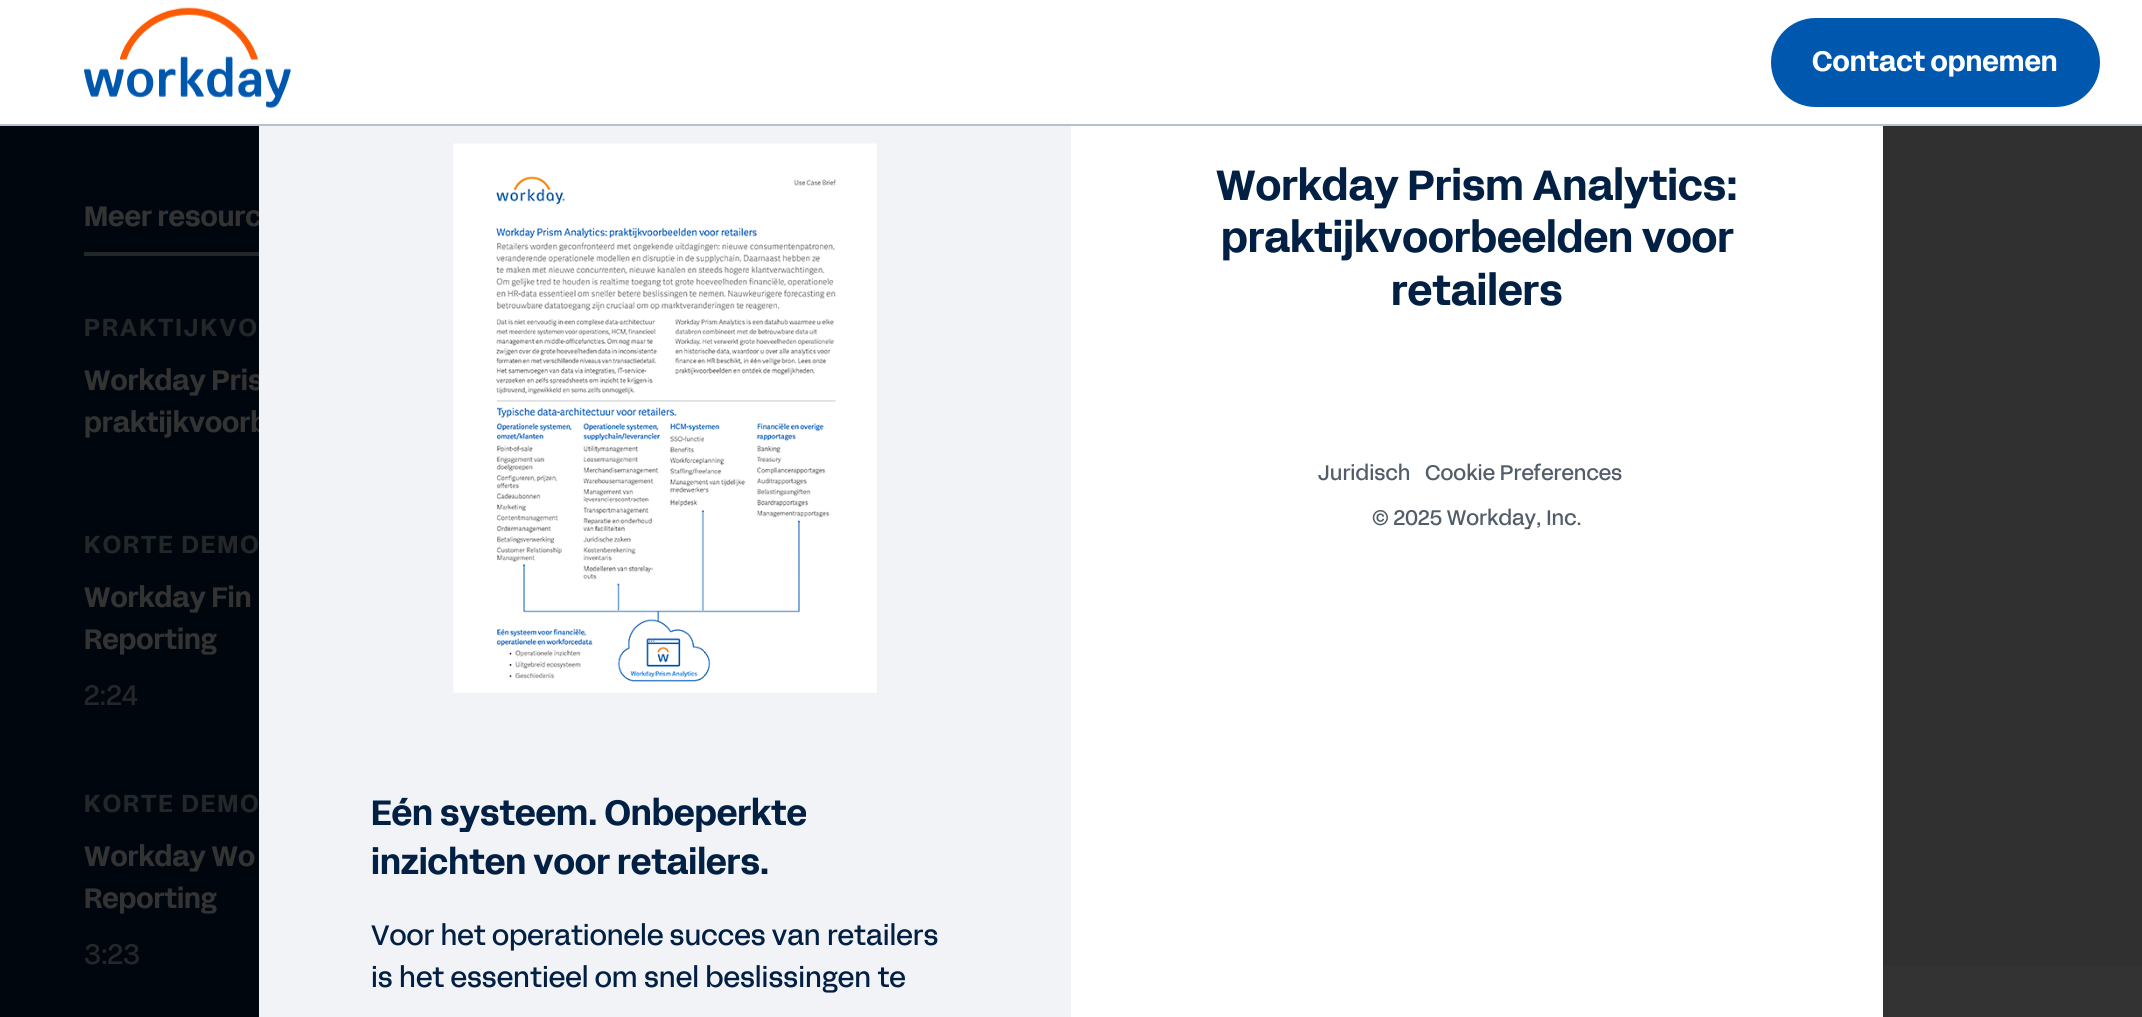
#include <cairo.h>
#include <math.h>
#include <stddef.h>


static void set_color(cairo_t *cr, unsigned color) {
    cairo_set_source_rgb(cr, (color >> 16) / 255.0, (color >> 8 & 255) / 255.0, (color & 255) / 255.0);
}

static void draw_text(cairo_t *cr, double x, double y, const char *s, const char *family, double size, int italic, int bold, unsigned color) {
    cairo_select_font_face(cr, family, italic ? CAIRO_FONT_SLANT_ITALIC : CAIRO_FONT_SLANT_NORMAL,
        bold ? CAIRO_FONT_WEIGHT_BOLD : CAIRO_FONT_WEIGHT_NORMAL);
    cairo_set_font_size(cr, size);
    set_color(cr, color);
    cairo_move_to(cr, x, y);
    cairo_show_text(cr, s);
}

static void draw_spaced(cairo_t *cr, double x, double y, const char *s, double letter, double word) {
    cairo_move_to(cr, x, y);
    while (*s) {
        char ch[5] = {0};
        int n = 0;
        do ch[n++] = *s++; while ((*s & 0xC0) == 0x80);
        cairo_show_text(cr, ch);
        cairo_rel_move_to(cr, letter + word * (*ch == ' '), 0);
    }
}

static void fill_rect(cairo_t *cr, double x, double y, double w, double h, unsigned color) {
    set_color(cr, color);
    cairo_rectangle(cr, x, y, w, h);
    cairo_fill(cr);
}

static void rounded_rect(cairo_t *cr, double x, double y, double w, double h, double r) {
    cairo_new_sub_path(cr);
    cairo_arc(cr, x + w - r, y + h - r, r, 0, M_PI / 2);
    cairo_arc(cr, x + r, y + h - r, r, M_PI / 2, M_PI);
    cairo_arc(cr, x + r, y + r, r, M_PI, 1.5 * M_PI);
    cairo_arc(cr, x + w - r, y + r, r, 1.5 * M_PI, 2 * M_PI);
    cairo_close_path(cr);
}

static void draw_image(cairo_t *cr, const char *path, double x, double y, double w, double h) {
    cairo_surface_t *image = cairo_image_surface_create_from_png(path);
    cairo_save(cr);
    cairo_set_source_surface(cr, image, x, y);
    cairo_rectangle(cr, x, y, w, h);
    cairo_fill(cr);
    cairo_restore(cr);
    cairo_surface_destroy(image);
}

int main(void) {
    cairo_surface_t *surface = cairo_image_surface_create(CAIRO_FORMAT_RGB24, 2142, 1017);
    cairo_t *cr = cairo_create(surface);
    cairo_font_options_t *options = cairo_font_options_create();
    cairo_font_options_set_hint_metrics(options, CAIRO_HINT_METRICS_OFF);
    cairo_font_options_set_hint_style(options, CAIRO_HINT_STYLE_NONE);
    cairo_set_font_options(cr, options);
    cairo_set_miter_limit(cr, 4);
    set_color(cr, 0x333333);
    cairo_paint(cr);
    fill_rect(cr, 0, 0, 2142, 124, 0xFFFFFF);
    fill_rect(cr, 0, 124, 2142, 2, 0xB6C1CC);
    draw_image(cr, "assets/img1.png", 84, 7, 207, 101);
    set_color(cr, 0x0057AE);
    rounded_rect(cr, 1771, 18, 329, 89, 44.5);
    cairo_fill(cr);
    draw_text(cr, 1812, 71, "Contact opnemen", "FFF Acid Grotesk", 28, 0, 1, 0xFFFFFF);
    fill_rect(cr, 0, 126, 259, 891, 0x00060D);
    fill_rect(cr, 84, 252, 175, 4, 0x242729);
    draw_text(cr, 84, 226, "Meer resourc", "FFF Acid Grotesk", 28, 0, 1, 0x333333);
    cairo_set_font_size(cr, 24.5);
    set_color(cr, 0x242729);
    draw_spaced(cr, 84, 336, "PRAKTIJKVO", 2, 0);
    draw_text(cr, 84, 390, "Workday Pris", "FFF Acid Grotesk", 28, 0, 1, 0x333333);
    draw_text(cr, 84, 432, "praktijkvoorb", "FFF Acid Grotesk", 28, 0, 1, 0x333333);
    cairo_set_font_size(cr, 24.5);
    set_color(cr, 0x242729);
    draw_spaced(cr, 84, 553, "KORTE DEMO", 2, 0);
    draw_text(cr, 84, 607, "Workday Fin", "FFF Acid Grotesk", 28, 0, 1, 0x333333);
    draw_text(cr, 84, 649, "Reporting", "FFF Acid Grotesk", 28, 0, 1, 0x333333);
    draw_text(cr, 84, 705, "2:24", "FFF Acid Grotesk", 28, 0, 0, 0x242729);
    cairo_select_font_face(cr, "FFF Acid Grotesk", CAIRO_FONT_SLANT_NORMAL, CAIRO_FONT_WEIGHT_BOLD);
    cairo_set_font_size(cr, 24.5);
    draw_spaced(cr, 84, 812, "KORTE DEMO", 2, 0);
    draw_text(cr, 84, 866, "Workday Wo", "FFF Acid Grotesk", 28, 0, 1, 0x333333);
    draw_text(cr, 84, 908, "Reporting", "FFF Acid Grotesk", 28, 0, 1, 0x333333);
    draw_text(cr, 84, 964, "3:23", "FFF Acid Grotesk", 28, 0, 0, 0x242729);
    fill_rect(cr, 1883, 126, 259, 840, 0x303030);
    fill_rect(cr, 1071, 126, 812, 891, 0xFFFFFF);
    draw_text(cr, 1216, 200, "Workday Prism Analytics:", "FFF Acid Grotesk", 42, 0, 1, 0x022043);
    draw_text(cr, 1221, 252, "praktijkvoorbeelden voor", "FFF Acid Grotesk", 42, 0, 1, 0x022043);
    draw_text(cr, 1391, 305, "retailers", "FFF Acid Grotesk", 42, 0, 1, 0x022043);
    draw_text(cr, 1318, 480, "Juridisch", "FFF Acid Grotesk", 21, 0, 0, 0x525D6A);
    draw_text(cr, 1425, 480, "Cookie Preferences", "FFF Acid Grotesk", 21, 0, 0, 0x525D6A);
    draw_text(cr, 1372, 525, "© 2025 Workday, Inc.", "FFF Acid Grotesk", 21, 0, 0, 0x525D6A);
    fill_rect(cr, 259, 126, 812, 891, 0xF1F3F6);
    draw_image(cr, "assets/img2.png", 453, 143, 424, 550);
    draw_text(cr, 371, 825, "Eén systeem. Onbeperkte", "FFF Acid Grotesk", 35, 0, 1, 0x022043);
    draw_text(cr, 371, 874, "inzichten voor retailers.", "FFF Acid Grotesk", 35, 0, 1, 0x022043);
    draw_text(cr, 371, 945, "Voor het operationele succes van retailers", "FFF Acid Grotesk", 28, 0, 0, 0x022043);
    draw_text(cr, 371, 987, "is het essentieel om snel beslissingen te", "FFF Acid Grotesk", 28, 0, 0, 0x022043);
    cairo_surface_write_to_png(surface, "output.png");
    cairo_font_options_destroy(options);
    cairo_destroy(cr);
    cairo_surface_destroy(surface);
    return 0;
}
